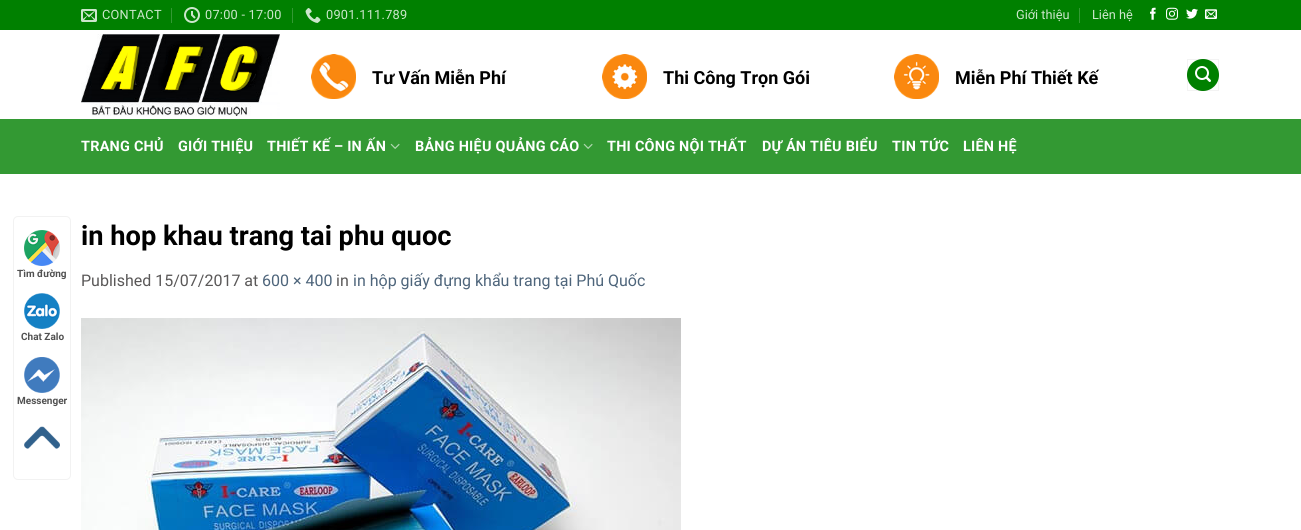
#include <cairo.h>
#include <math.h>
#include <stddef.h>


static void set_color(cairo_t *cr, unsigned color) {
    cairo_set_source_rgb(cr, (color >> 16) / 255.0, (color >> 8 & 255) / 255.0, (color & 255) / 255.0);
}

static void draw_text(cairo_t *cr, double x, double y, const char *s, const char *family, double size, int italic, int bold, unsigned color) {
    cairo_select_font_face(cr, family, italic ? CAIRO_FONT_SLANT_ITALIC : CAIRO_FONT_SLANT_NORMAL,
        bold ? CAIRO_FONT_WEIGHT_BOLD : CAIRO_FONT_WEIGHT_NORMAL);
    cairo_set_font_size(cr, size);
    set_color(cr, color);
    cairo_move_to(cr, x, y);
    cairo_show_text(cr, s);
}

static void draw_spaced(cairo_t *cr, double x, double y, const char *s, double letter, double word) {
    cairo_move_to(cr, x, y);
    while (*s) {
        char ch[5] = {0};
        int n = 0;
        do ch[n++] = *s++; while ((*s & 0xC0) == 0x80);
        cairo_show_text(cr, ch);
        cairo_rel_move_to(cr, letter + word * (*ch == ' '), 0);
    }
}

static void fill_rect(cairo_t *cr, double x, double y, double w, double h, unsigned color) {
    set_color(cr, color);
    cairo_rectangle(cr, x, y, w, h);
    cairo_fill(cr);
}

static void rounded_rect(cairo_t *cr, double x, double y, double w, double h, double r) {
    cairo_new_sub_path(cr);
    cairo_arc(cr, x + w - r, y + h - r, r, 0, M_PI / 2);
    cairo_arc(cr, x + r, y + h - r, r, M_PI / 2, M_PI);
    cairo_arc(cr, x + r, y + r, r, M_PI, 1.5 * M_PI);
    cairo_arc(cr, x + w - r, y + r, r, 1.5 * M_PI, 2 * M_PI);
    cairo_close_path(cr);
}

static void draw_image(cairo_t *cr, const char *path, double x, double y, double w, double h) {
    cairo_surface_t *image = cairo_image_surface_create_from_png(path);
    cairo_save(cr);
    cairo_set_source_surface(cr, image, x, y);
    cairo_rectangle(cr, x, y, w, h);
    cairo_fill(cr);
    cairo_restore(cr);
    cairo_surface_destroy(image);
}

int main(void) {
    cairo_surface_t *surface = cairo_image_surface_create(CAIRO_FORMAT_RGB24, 1301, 530);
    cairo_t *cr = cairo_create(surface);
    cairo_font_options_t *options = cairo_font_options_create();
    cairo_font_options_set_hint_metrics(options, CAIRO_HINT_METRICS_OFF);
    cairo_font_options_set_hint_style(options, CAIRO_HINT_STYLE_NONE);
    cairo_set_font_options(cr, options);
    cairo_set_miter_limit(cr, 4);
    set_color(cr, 0xFFFFFF);
    cairo_paint(cr);
    fill_rect(cr, 0, 0, 1301, 30, 0x008000);
    draw_image(cr, "assets/img1.png", 81, 9, 16, 13);
    cairo_select_font_face(cr, "Roboto", CAIRO_FONT_SLANT_NORMAL, CAIRO_FONT_WEIGHT_NORMAL);
    cairo_set_font_size(cr, 12.75);
    set_color(cr, 0xCCE6CC);
    draw_spaced(cr, 102, 19, "CONTACT", 0.25, 0);
    fill_rect(cr, 171, 8, 1, 15, 0x339933);
    draw_image(cr, "assets/img2.png", 184, 7, 16, 16);
    set_color(cr, 0xCCE6CC);
    draw_spaced(cr, 205, 19, "07:00 - 17:00", 0.25, 0);
    fill_rect(cr, 292, 8, 1, 15, 0x339933);
    draw_image(cr, "assets/img3.png", 305, 8, 16, 15);
    set_color(cr, 0xCCE6CC);
    draw_spaced(cr, 326, 19, "0901.111.789", 0.25, 0);
    draw_text(cr, 1016, 19, "Giới thiệu", "Roboto", 12.75, 0, 0, 0xCCE6CC);
    fill_rect(cr, 1079, 8, 1, 15, 0x339933);
    draw_text(cr, 1092, 19, "Liên hệ", "Roboto", 12.75, 0, 0, 0xCCE6CC);
    draw_image(cr, "assets/img4.png", 1150, 7, 6, 13);
    draw_image(cr, "assets/img5.png", 1166, 7, 12, 13);
    draw_image(cr, "assets/img6.png", 1186, 8, 12, 11);
    draw_image(cr, "assets/img7.png", 1205, 9, 12, 10);
    draw_image(cr, "assets/img8.png", 81, 34, 199, 82);
    draw_image(cr, "assets/img9.png", 311, 54, 45, 45);
    draw_text(cr, 372, 84, "Tư Vấn Miễn Phí", "Roboto", 18, 0, 1, 0x000000);
    draw_image(cr, "assets/img10.png", 602, 54, 45, 45);
    draw_text(cr, 663, 84, "Thi Công Trọn Gói", "Roboto", 18, 0, 1, 0x000000);
    draw_image(cr, "assets/img11.png", 894, 54, 45, 45);
    draw_text(cr, 955, 84, "Miễn Phí Thiết Kế", "Roboto", 18, 0, 1, 0x000000);
    set_color(cr, 0x008000);
    cairo_new_path(cr);
    cairo_arc(cr, 1203, 75, 16, 0, 2 * M_PI);
    cairo_fill(cr);
    cairo_rectangle(cr, 1187.5, 59.5, 31, 31);
    cairo_set_source_rgba(cr, 0, 0, 0, 0.05);
    cairo_set_line_width(cr, 1);
    cairo_stroke(cr);
    draw_image(cr, "assets/img12.png", 1195, 66, 16, 16);
    fill_rect(cr, 0, 119, 1301, 55, 0x339933);
    fill_rect(cr, 81, 119, 1140, 1, 0x379337);
    cairo_set_font_size(cr, 14.4);
    set_color(cr, 0xFFFFFF);
    draw_spaced(cr, 81, 151, "TRANG CHỦ", 0.25, 0);
    draw_spaced(cr, 178, 151, "GIỚI THIỆU", 0.25, 0);
    draw_spaced(cr, 267, 151, "THIẾT KẾ – IN ẤN", 0.25, 0);
    draw_image(cr, "assets/img13.png", 390, 143, 10, 6);
    draw_spaced(cr, 415, 151, "BẢNG HIỆU QUẢNG CÁO", 0.25, 0);
    draw_image(cr, "assets/img13.png", 583, 143, 10, 6);
    draw_spaced(cr, 607, 151, "THI CÔNG NỘI THẤT", 0.25, 0);
    draw_spaced(cr, 762, 151, "DỰ ÁN TIÊU BIỂU", 0.25, 0);
    draw_spaced(cr, 892, 151, "TIN TỨC", 0.25, 0);
    draw_spaced(cr, 963, 151, "LIÊN HỆ", 0.25, 0);
    draw_text(cr, 81, 245, "in hop khau trang tai phu quoc", "Roboto", 27.25, 0, 1, 0x000000);
    draw_text(cr, 81, 286, "Published 15/07/2017 at", "Roboto", 16, 0, 0, 0x5A5858);
    draw_text(cr, 262, 286, "600 × 400", "Roboto", 16, 0, 0, 0x4E657B);
    draw_text(cr, 336, 286, "in", "Roboto", 16, 0, 0, 0x5A5858);
    draw_text(cr, 353, 286, "in hộp giấy đựng khẩu trang tại Phú Quốc", "Roboto", 16, 0, 0, 0x4E657B);
    draw_image(cr, "assets/img14.png", 81, 318, 600, 212);
    rounded_rect(cr, 13.5, 216.5, 57, 263, 4.5);
    set_color(cr, 0xF2F2F2);
    cairo_stroke(cr);
    draw_image(cr, "assets/img15.png", 24, 230, 36, 36);
    draw_text(cr, 17, 277, "Tìm đường", "Roboto", 10, 0, 1, 0x515151);
    draw_image(cr, "assets/img16.png", 24, 293, 36, 36);
    draw_text(cr, 21, 340, "Chat Zalo", "Roboto", 10, 0, 1, 0x515151);
    draw_image(cr, "assets/img17.png", 24, 357, 36, 36);
    draw_text(cr, 17, 404, "Messenger", "Roboto", 10, 0, 1, 0x515151);
    draw_image(cr, "assets/img18.png", 24, 426, 36, 23);
    cairo_surface_write_to_png(surface, "output.png");
    cairo_font_options_destroy(options);
    cairo_destroy(cr);
    cairo_surface_destroy(surface);
    return 0;
}
